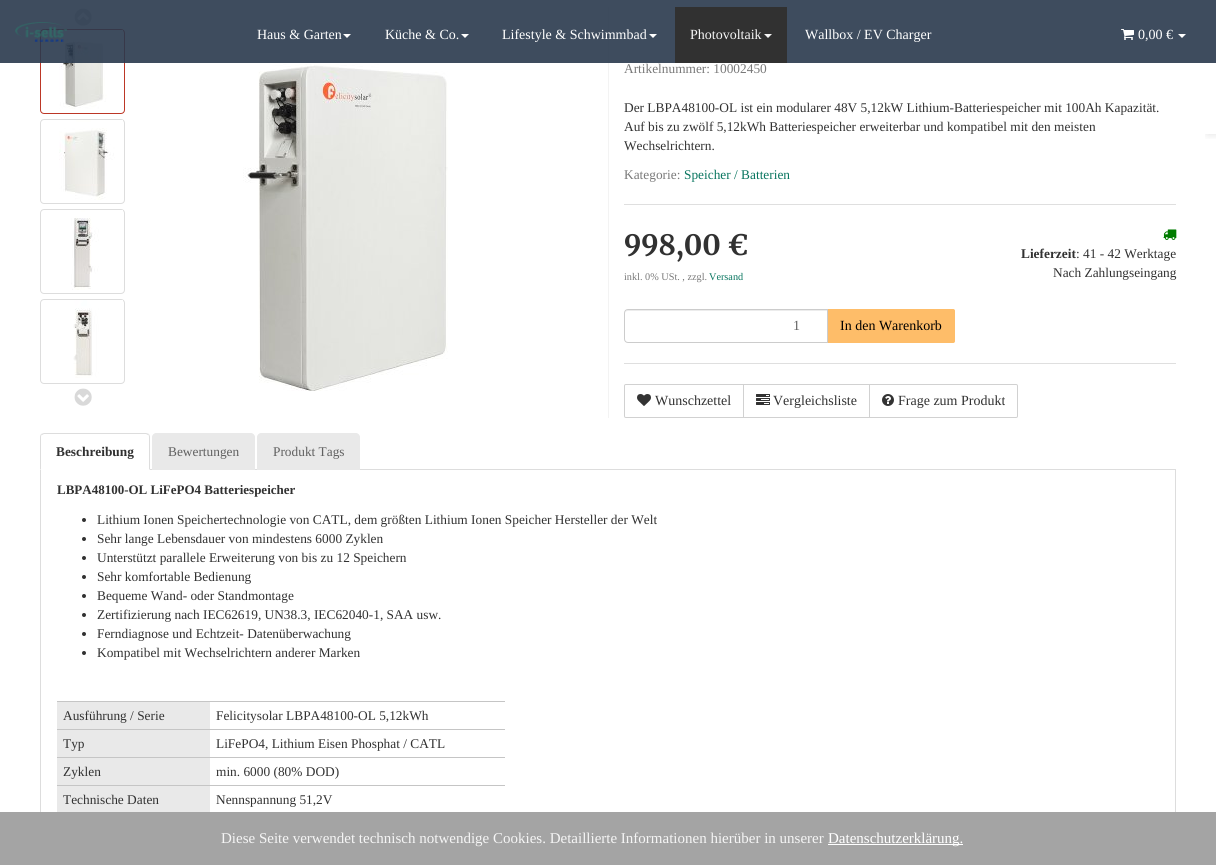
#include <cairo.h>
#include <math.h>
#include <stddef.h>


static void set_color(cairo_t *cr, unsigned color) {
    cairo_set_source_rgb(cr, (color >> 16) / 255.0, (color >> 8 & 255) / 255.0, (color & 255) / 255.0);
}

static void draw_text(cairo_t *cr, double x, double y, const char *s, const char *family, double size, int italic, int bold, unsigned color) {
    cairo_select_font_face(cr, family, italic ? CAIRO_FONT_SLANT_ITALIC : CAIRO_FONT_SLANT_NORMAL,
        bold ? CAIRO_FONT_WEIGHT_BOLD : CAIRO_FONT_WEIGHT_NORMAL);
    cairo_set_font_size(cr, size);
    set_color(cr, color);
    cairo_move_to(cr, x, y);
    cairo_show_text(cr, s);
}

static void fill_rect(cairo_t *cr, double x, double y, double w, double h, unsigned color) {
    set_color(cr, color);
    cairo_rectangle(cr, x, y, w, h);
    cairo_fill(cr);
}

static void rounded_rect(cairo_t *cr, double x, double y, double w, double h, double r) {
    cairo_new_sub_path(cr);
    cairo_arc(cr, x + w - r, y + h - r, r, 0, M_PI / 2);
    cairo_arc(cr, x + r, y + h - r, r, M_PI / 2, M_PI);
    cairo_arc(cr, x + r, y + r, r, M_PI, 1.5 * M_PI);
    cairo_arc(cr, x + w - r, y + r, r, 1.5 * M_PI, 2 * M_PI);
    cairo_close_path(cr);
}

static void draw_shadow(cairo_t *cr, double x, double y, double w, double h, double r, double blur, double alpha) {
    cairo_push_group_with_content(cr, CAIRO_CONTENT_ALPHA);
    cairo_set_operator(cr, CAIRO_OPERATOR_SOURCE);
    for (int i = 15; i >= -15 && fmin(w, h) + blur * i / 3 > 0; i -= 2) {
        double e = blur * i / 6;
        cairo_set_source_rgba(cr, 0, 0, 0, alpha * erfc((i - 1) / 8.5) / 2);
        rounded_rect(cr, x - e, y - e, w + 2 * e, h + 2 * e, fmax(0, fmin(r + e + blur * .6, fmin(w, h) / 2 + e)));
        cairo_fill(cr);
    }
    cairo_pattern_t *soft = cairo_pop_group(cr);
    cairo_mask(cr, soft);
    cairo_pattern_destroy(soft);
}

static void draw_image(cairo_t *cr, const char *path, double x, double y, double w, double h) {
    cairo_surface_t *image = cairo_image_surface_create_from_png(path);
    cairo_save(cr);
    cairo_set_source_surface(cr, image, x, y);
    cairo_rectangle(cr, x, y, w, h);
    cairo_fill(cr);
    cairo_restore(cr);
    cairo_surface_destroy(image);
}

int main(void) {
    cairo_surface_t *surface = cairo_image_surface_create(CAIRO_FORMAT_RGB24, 1216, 865);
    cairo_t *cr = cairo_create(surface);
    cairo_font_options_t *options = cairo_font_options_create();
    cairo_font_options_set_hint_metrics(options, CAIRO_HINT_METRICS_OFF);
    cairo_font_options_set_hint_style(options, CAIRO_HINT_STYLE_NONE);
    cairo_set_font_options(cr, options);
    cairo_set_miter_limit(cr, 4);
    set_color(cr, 0xFFFFFF);
    cairo_paint(cr);
    draw_image(cr, "assets/img3.png", 74, 8, 18, 18);
    rounded_rect(cr, 40.5, 29.5, 84, 84, 3.5);
    set_color(cr, 0xBC3726);
    cairo_set_line_width(cr, 1);
    cairo_stroke(cr);
    draw_image(cr, "assets/img4.png", 43, 30, 80, 79);
    fill_rect(cr, 608, 7, 1, 411, 0xF3F3F3);
    cairo_save(cr);
    cairo_rectangle(cr, 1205, 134, 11, 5);
    cairo_clip(cr);
    set_color(cr, 0x000000);
    draw_shadow(cr, 1207, -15, 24, 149, 0, 5, 0.12);
    cairo_restore(cr);
    cairo_set_source_rgba(cr, 0.161, 0.224, 0.302, 0.9);
    cairo_rectangle(cr, 0, 0, 1216, 63);
    cairo_fill(cr);
    draw_image(cr, "assets/img1.png", 15, 22, 52, 20);
    draw_text(cr, 257, 39, "Haus & Garten", "Liberation Serif", 14, 0, 0, 0xFFFFFF);
    cairo_new_path(cr);
    cairo_move_to(cr, 343, 34);
    cairo_line_to(cr, 351, 34);
    cairo_line_to(cr, 347, 38);
    cairo_close_path(cr);
    cairo_fill(cr);
    draw_text(cr, 385, 39, "Küche & Co.", "Liberation Serif", 14, 0, 0, 0xFFFFFF);
    cairo_new_path(cr);
    cairo_move_to(cr, 461, 34);
    cairo_line_to(cr, 469, 34);
    cairo_line_to(cr, 465, 38);
    cairo_close_path(cr);
    cairo_fill(cr);
    draw_text(cr, 502, 39, "Lifestyle & Schwimmbad", "Liberation Serif", 14, 0, 0, 0xFFFFFF);
    cairo_new_path(cr);
    cairo_move_to(cr, 649, 34);
    cairo_line_to(cr, 657, 34);
    cairo_line_to(cr, 653, 38);
    cairo_close_path(cr);
    cairo_fill(cr);
    fill_rect(cr, 675, 7, 112, 56, 0x313131);
    draw_text(cr, 690, 39, "Photovoltaik", "Liberation Serif", 14, 0, 0, 0xF5F5F5);
    cairo_new_path(cr);
    cairo_move_to(cr, 764, 34);
    cairo_line_to(cr, 772, 34);
    cairo_line_to(cr, 768, 38);
    cairo_close_path(cr);
    cairo_fill(cr);
    draw_text(cr, 805, 39, "Wallbox / EV Charger", "Liberation Serif", 14, 0, 0, 0xFFFFFF);
    draw_image(cr, "assets/img2.png", 1121, 29, 13, 11);
    draw_text(cr, 1138, 39, "0,00 €", "Liberation Serif", 14, 0, 0, 0xFFFFFF);
    cairo_new_path(cr);
    cairo_move_to(cr, 1178, 34);
    cairo_line_to(cr, 1186, 34);
    cairo_line_to(cr, 1182, 38);
    cairo_close_path(cr);
    cairo_fill(cr);
    rounded_rect(cr, 40.5, 119.5, 84, 84, 3.5);
    set_color(cr, 0xDDDDDD);
    cairo_stroke(cr);
    draw_image(cr, "assets/img5.png", 59, 120, 64, 80);
    rounded_rect(cr, 40.5, 209.5, 84, 84, 3.5);
    cairo_stroke(cr);
    draw_image(cr, "assets/img6.png", 71, 210, 52, 80);
    rounded_rect(cr, 40.5, 299.5, 84, 84, 3.5);
    cairo_stroke(cr);
    draw_image(cr, "assets/img7.png", 73, 300, 50, 78);
    draw_image(cr, "assets/img8.png", 74, 388, 18, 18);
    draw_image(cr, "assets/img9.png", 243, 64, 205, 327);
    draw_text(cr, 624, 73, "Artikelnummer: 10002450", "Liberation Serif", 13.35, 0, 0, 0x797979);
    draw_text(cr, 624, 112, "Der LBPA48100-OL ist ein modularer 48V 5,12kW Lithium-Batteriespeicher mit 100Ah Kapazität.", "Liberation Serif", 13.35, 0, 0, 0x313131);
    draw_text(cr, 624, 131, "Auf bis zu zwölf 5,12kWh Batteriespeicher erweiterbar und kompatibel mit den meisten", "Liberation Serif", 13.35, 0, 0, 0x313131);
    draw_text(cr, 624, 150, "Wechselrichtern.", "Liberation Serif", 13.35, 0, 0, 0x313131);
    draw_text(cr, 624, 179, "Kategorie:", "Liberation Serif", 13.35, 0, 0, 0x797979);
    draw_text(cr, 684, 179, "Speicher / Batterien", "Liberation Serif", 13.35, 0, 0, 0x08755F);
    fill_rect(cr, 624, 204, 552, 1, 0xDFDFDF);
    draw_text(cr, 624, 255, "998,00 €", "Merriweather", 28, 0, 1, 0x313131);
    draw_text(cr, 624, 280, "inkl. 0% USt. , zzgl.", "Liberation Serif", 10.25, 0, 0, 0x797979);
    draw_text(cr, 709, 280, "Versand", "Liberation Serif", 10.25, 0, 0, 0x08755F);
    draw_image(cr, "assets/img10.png", 1163, 229, 14, 11);
    draw_text(cr, 1021, 258, "Lieferzeit", "Liberation Serif", 13.35, 0, 1, 0x313131);
    draw_text(cr, 1076, 258, ": 41 - 42 Werktage", "Liberation Serif", 13.35, 0, 0, 0x313131);
    draw_text(cr, 1053, 277, "Nach Zahlungseingang", "Liberation Serif", 13.35, 0, 0, 0x313131);
    set_color(cr, 0xFEBD69);
    cairo_new_path(cr);
    cairo_move_to(cr, 827.5, 309.5);
    cairo_line_to(cr, 953, 309.5);
    cairo_curve_to(cr, 954, 309.5, 954.5, 310, 954.5, 311);
    cairo_line_to(cr, 954.5, 341);
    cairo_curve_to(cr, 954.5, 342, 954, 342.5, 953, 342.5);
    cairo_line_to(cr, 827.5, 342.5);
    cairo_close_path(cr);
    cairo_fill_preserve(cr);
    cairo_stroke(cr);
    set_color(cr, 0xFFFFFF);
    cairo_new_path(cr);
    cairo_move_to(cr, 628, 309);
    cairo_line_to(cr, 828, 309);
    cairo_line_to(cr, 828, 343);
    cairo_line_to(cr, 628, 343);
    cairo_curve_to(cr, 626, 343, 624, 341, 624, 339);
    cairo_line_to(cr, 624, 313);
    cairo_curve_to(cr, 624, 311, 626, 309, 628, 309);
    cairo_close_path(cr);
    cairo_fill(cr);
    set_color(cr, 0xECECEC);
    cairo_new_path(cr);
    cairo_move_to(cr, 628, 311);
    cairo_line_to(cr, 827, 311);
    cairo_line_to(cr, 827, 310);
    cairo_line_to(cr, 628, 310);
    cairo_curve_to(cr, 626, 310, 625, 312, 625, 314);
    cairo_curve_to(cr, 625, 312, 626, 311, 628, 311);
    cairo_close_path(cr);
    cairo_fill(cr);
    cairo_new_path(cr);
    cairo_move_to(cr, 628, 309.5);
    cairo_line_to(cr, 827.5, 309.5);
    cairo_line_to(cr, 827.5, 342.5);
    cairo_line_to(cr, 628, 342.5);
    cairo_curve_to(cr, 626, 342.5, 624.5, 341, 624.5, 339);
    cairo_line_to(cr, 624.5, 313);
    cairo_curve_to(cr, 624.5, 311, 626, 309.5, 628, 309.5);
    cairo_close_path(cr);
    set_color(cr, 0xCCCCCC);
    cairo_stroke(cr);
    draw_text(cr, 793, 330, "1", "Liberation Serif", 14, 0, 0, 0x606060);
    draw_text(cr, 840, 330, "In den Warenkorb", "Liberation Serif", 14, 0, 0, 0x000000);
    fill_rect(cr, 624, 363, 552, 1, 0xDFDFDF);
    cairo_new_path(cr);
    cairo_move_to(cr, 626, 384.5);
    cairo_line_to(cr, 743.5, 384.5);
    cairo_line_to(cr, 743.5, 417.5);
    cairo_line_to(cr, 626, 417.5);
    cairo_curve_to(cr, 625, 417.5, 624.5, 417, 624.5, 416);
    cairo_line_to(cr, 624.5, 386);
    cairo_curve_to(cr, 624.5, 385, 625, 384.5, 626, 384.5);
    cairo_close_path(cr);
    set_color(cr, 0xD1D1D1);
    cairo_stroke(cr);
    draw_image(cr, "assets/img11.png", 637, 394, 14, 12);
    draw_text(cr, 655, 405, "Wunschzettel", "Liberation Serif", 14, 0, 0, 0x313131);
    cairo_rectangle(cr, 743.5, 384.5, 126, 33);
    set_color(cr, 0xD1D1D1);
    cairo_stroke(cr);
    draw_image(cr, "assets/img12.png", 756, 394, 14, 11);
    draw_text(cr, 773, 405, "Vergleichsliste", "Liberation Serif", 14, 0, 0, 0x313131);
    set_color(cr, 0xFFFFFF);
    cairo_new_path(cr);
    cairo_move_to(cr, 869.5, 384.5);
    cairo_line_to(cr, 1016, 384.5);
    cairo_curve_to(cr, 1017, 384.5, 1017.5, 385, 1017.5, 386);
    cairo_line_to(cr, 1017.5, 416);
    cairo_curve_to(cr, 1017.5, 417, 1017, 417.5, 1016, 417.5);
    cairo_line_to(cr, 869.5, 417.5);
    cairo_close_path(cr);
    cairo_fill_preserve(cr);
    set_color(cr, 0xD1D1D1);
    cairo_stroke(cr);
    draw_image(cr, "assets/img13.png", 882, 394, 12, 12);
    draw_text(cr, 898, 405, "Frage zum Produkt", "Liberation Serif", 14, 0, 0, 0x313131);
    fill_rect(cr, 150, 469, 1026, 1, 0xDDDDDD);
    cairo_new_path(cr);
    cairo_move_to(cr, 44, 433);
    cairo_line_to(cr, 41, 434);
    cairo_line_to(cr, 42, 435);
    cairo_line_to(cr, 44, 434);
    cairo_line_to(cr, 146, 434);
    cairo_line_to(cr, 148, 435);
    cairo_line_to(cr, 149, 434);
    cairo_line_to(cr, 146, 433);
    cairo_close_path(cr);
    cairo_fill(cr);
    cairo_new_path(cr);
    cairo_move_to(cr, 150, 470);
    cairo_line_to(cr, 150, 437);
    cairo_curve_to(cr, 150, 436, 149.5, 435, 149, 434);
    cairo_line_to(cr, 148, 435);
    cairo_curve_to(cr, 149, 435, 149, 436, 149, 437);
    cairo_line_to(cr, 149, 469);
    cairo_close_path(cr);
    cairo_fill(cr);
    cairo_new_path(cr);
    cairo_move_to(cr, 40, 470);
    cairo_line_to(cr, 41, 469);
    cairo_line_to(cr, 41, 437);
    cairo_curve_to(cr, 41, 436, 41, 435, 42, 435);
    cairo_line_to(cr, 41, 434);
    cairo_curve_to(cr, 40.5, 435, 40, 436, 40, 437);
    cairo_close_path(cr);
    cairo_fill(cr);
    draw_text(cr, 56, 456, "Beschreibung", "Liberation Serif", 13.35, 0, 1, 0x313131);
    set_color(cr, 0xE9E9E9);
    cairo_new_path(cr);
    cairo_move_to(cr, 156, 433);
    cairo_line_to(cr, 251, 433);
    cairo_curve_to(cr, 253, 433, 255, 435, 255, 437);
    cairo_line_to(cr, 255, 470);
    cairo_line_to(cr, 152, 470);
    cairo_line_to(cr, 152, 437);
    cairo_curve_to(cr, 152, 435, 154, 433, 156, 433);
    cairo_close_path(cr);
    cairo_fill(cr);
    draw_text(cr, 168, 456, "Bewertungen", "Liberation Serif", 13.35, 0, 0, 0x606060);
    set_color(cr, 0xE9E9E9);
    cairo_new_path(cr);
    cairo_move_to(cr, 261, 433);
    cairo_line_to(cr, 356, 433);
    cairo_curve_to(cr, 358, 433, 360, 435, 360, 437);
    cairo_line_to(cr, 360, 470);
    cairo_line_to(cr, 257, 470);
    cairo_line_to(cr, 257, 437);
    cairo_curve_to(cr, 257, 435, 259, 433, 261, 433);
    cairo_close_path(cr);
    cairo_fill(cr);
    draw_text(cr, 273, 456, "Produkt Tags", "Liberation Serif", 13.35, 0, 0, 0x606060);
    set_color(cr, 0xDDDDDD);
    cairo_set_fill_rule(cr, CAIRO_FILL_RULE_EVEN_ODD);
    cairo_new_path(cr);
    cairo_move_to(cr, 40, 470);
    cairo_line_to(cr, 1176, 470);
    cairo_line_to(cr, 1176, 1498);
    cairo_curve_to(cr, 1176, 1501, 1174, 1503, 1171, 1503);
    cairo_line_to(cr, 45, 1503);
    cairo_curve_to(cr, 42, 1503, 40, 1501, 40, 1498);
    cairo_close_path(cr);
    cairo_move_to(cr, 41, 470);
    cairo_line_to(cr, 1175, 470);
    cairo_line_to(cr, 1175, 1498);
    cairo_curve_to(cr, 1175, 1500, 1173, 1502, 1171, 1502);
    cairo_line_to(cr, 45, 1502);
    cairo_curve_to(cr, 43, 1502, 41, 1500, 41, 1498);
    cairo_close_path(cr);
    cairo_fill(cr);
    draw_text(cr, 57, 494, "LBPA48100-OL LiFePO4 Batteriespeicher", "Liberation Serif", 13, 0, 1, 0x313131);
    cairo_new_path(cr);
    cairo_arc(cr, 84, 520, 2, 0, 2 * M_PI);
    cairo_fill(cr);
    draw_text(cr, 97, 524, "Lithium Ionen Speichertechnologie von CATL, dem größten Lithium Ionen Speicher Hersteller der Welt", "Liberation Serif", 13.35, 0, 0, 0x313131);
    cairo_new_path(cr);
    cairo_arc(cr, 84, 539, 2, 0, 2 * M_PI);
    cairo_fill(cr);
    draw_text(cr, 97, 543, "Sehr lange Lebensdauer von mindestens 6000 Zyklen", "Liberation Serif", 13.35, 0, 0, 0x313131);
    cairo_new_path(cr);
    cairo_arc(cr, 84, 558, 2, 0, 2 * M_PI);
    cairo_fill(cr);
    draw_text(cr, 97, 562, "Unterstützt parallele Erweiterung von bis zu 12 Speichern", "Liberation Serif", 13.35, 0, 0, 0x313131);
    cairo_new_path(cr);
    cairo_arc(cr, 84, 577, 2, 0, 2 * M_PI);
    cairo_fill(cr);
    draw_text(cr, 97, 581, "Sehr komfortable Bedienung", "Liberation Serif", 13.35, 0, 0, 0x313131);
    cairo_new_path(cr);
    cairo_arc(cr, 84, 596, 2, 0, 2 * M_PI);
    cairo_fill(cr);
    draw_text(cr, 97, 600, "Bequeme Wand- oder Standmontage", "Liberation Serif", 13.35, 0, 0, 0x313131);
    cairo_new_path(cr);
    cairo_arc(cr, 84, 615, 2, 0, 2 * M_PI);
    cairo_fill(cr);
    draw_text(cr, 97, 619, "Zertifizierung nach IEC62619, UN38.3, IEC62040-1, SAA usw.", "Liberation Serif", 13.35, 0, 0, 0x313131);
    cairo_new_path(cr);
    cairo_arc(cr, 84, 634, 2, 0, 2 * M_PI);
    cairo_fill(cr);
    draw_text(cr, 97, 638, "Ferndiagnose und Echtzeit- Datenüberwachung", "Liberation Serif", 13.35, 0, 0, 0x313131);
    cairo_new_path(cr);
    cairo_arc(cr, 84, 653, 2, 0, 2 * M_PI);
    cairo_fill(cr);
    draw_text(cr, 97, 657, "Kompatibel mit Wechselrichtern anderer Marken", "Liberation Serif", 13.35, 0, 0, 0x313131);
    fill_rect(cr, 57, 701, 448, 1, 0xC5C5C5);
    fill_rect(cr, 57, 702, 153, 27, 0xE9E9E9);
    draw_text(cr, 63, 720, "Ausführung / Serie", "Liberation Serif", 13.35, 0, 0, 0x313131);
    draw_text(cr, 216, 720, "Felicitysolar LBPA48100-OL 5,12kWh", "Liberation Serif", 13.35, 0, 0, 0x313131);
    fill_rect(cr, 57, 729, 448, 1, 0xC5C5C5);
    fill_rect(cr, 57, 730, 153, 27, 0xE9E9E9);
    draw_text(cr, 63, 748, "Typ", "Liberation Serif", 13.35, 0, 0, 0x313131);
    draw_text(cr, 216, 748, "LiFePO4, Lithium Eisen Phosphat / CATL", "Liberation Serif", 13.35, 0, 0, 0x313131);
    fill_rect(cr, 57, 757, 448, 1, 0xC5C5C5);
    fill_rect(cr, 57, 758, 153, 27, 0xE9E9E9);
    draw_text(cr, 63, 776, "Zyklen", "Liberation Serif", 13.35, 0, 0, 0x313131);
    draw_text(cr, 216, 776, "min. 6000 (80% DOD)", "Liberation Serif", 13.35, 0, 0, 0x313131);
    fill_rect(cr, 57, 785, 448, 1, 0xC5C5C5);
    fill_rect(cr, 57, 786, 153, 26, 0xE9E9E9);
    draw_text(cr, 63, 804, "Technische Daten", "Liberation Serif", 13.35, 0, 0, 0x313131);
    draw_text(cr, 216, 804, "Nennspannung 51,2V", "Liberation Serif", 13.35, 0, 0, 0x313131);
    fill_rect(cr, 0, 812, 1216, 53, 0xA4A4A4);
    draw_text(cr, 221, 843, "Diese Seite verwendet technisch notwendige Cookies. Detaillierte Informationen hierüber in unserer", "Liberation Serif", 15, 0, 0, 0xF5F5F5);
    fill_rect(cr, 828, 844, 135, 1, 0xFFFFFF);
    draw_text(cr, 828, 843, "Datenschutzerklärung.", "Liberation Serif", 15, 0, 0, 0xFFFFFF);
    cairo_surface_write_to_png(surface, "output.png");
    cairo_font_options_destroy(options);
    cairo_destroy(cr);
    cairo_surface_destroy(surface);
    return 0;
}
